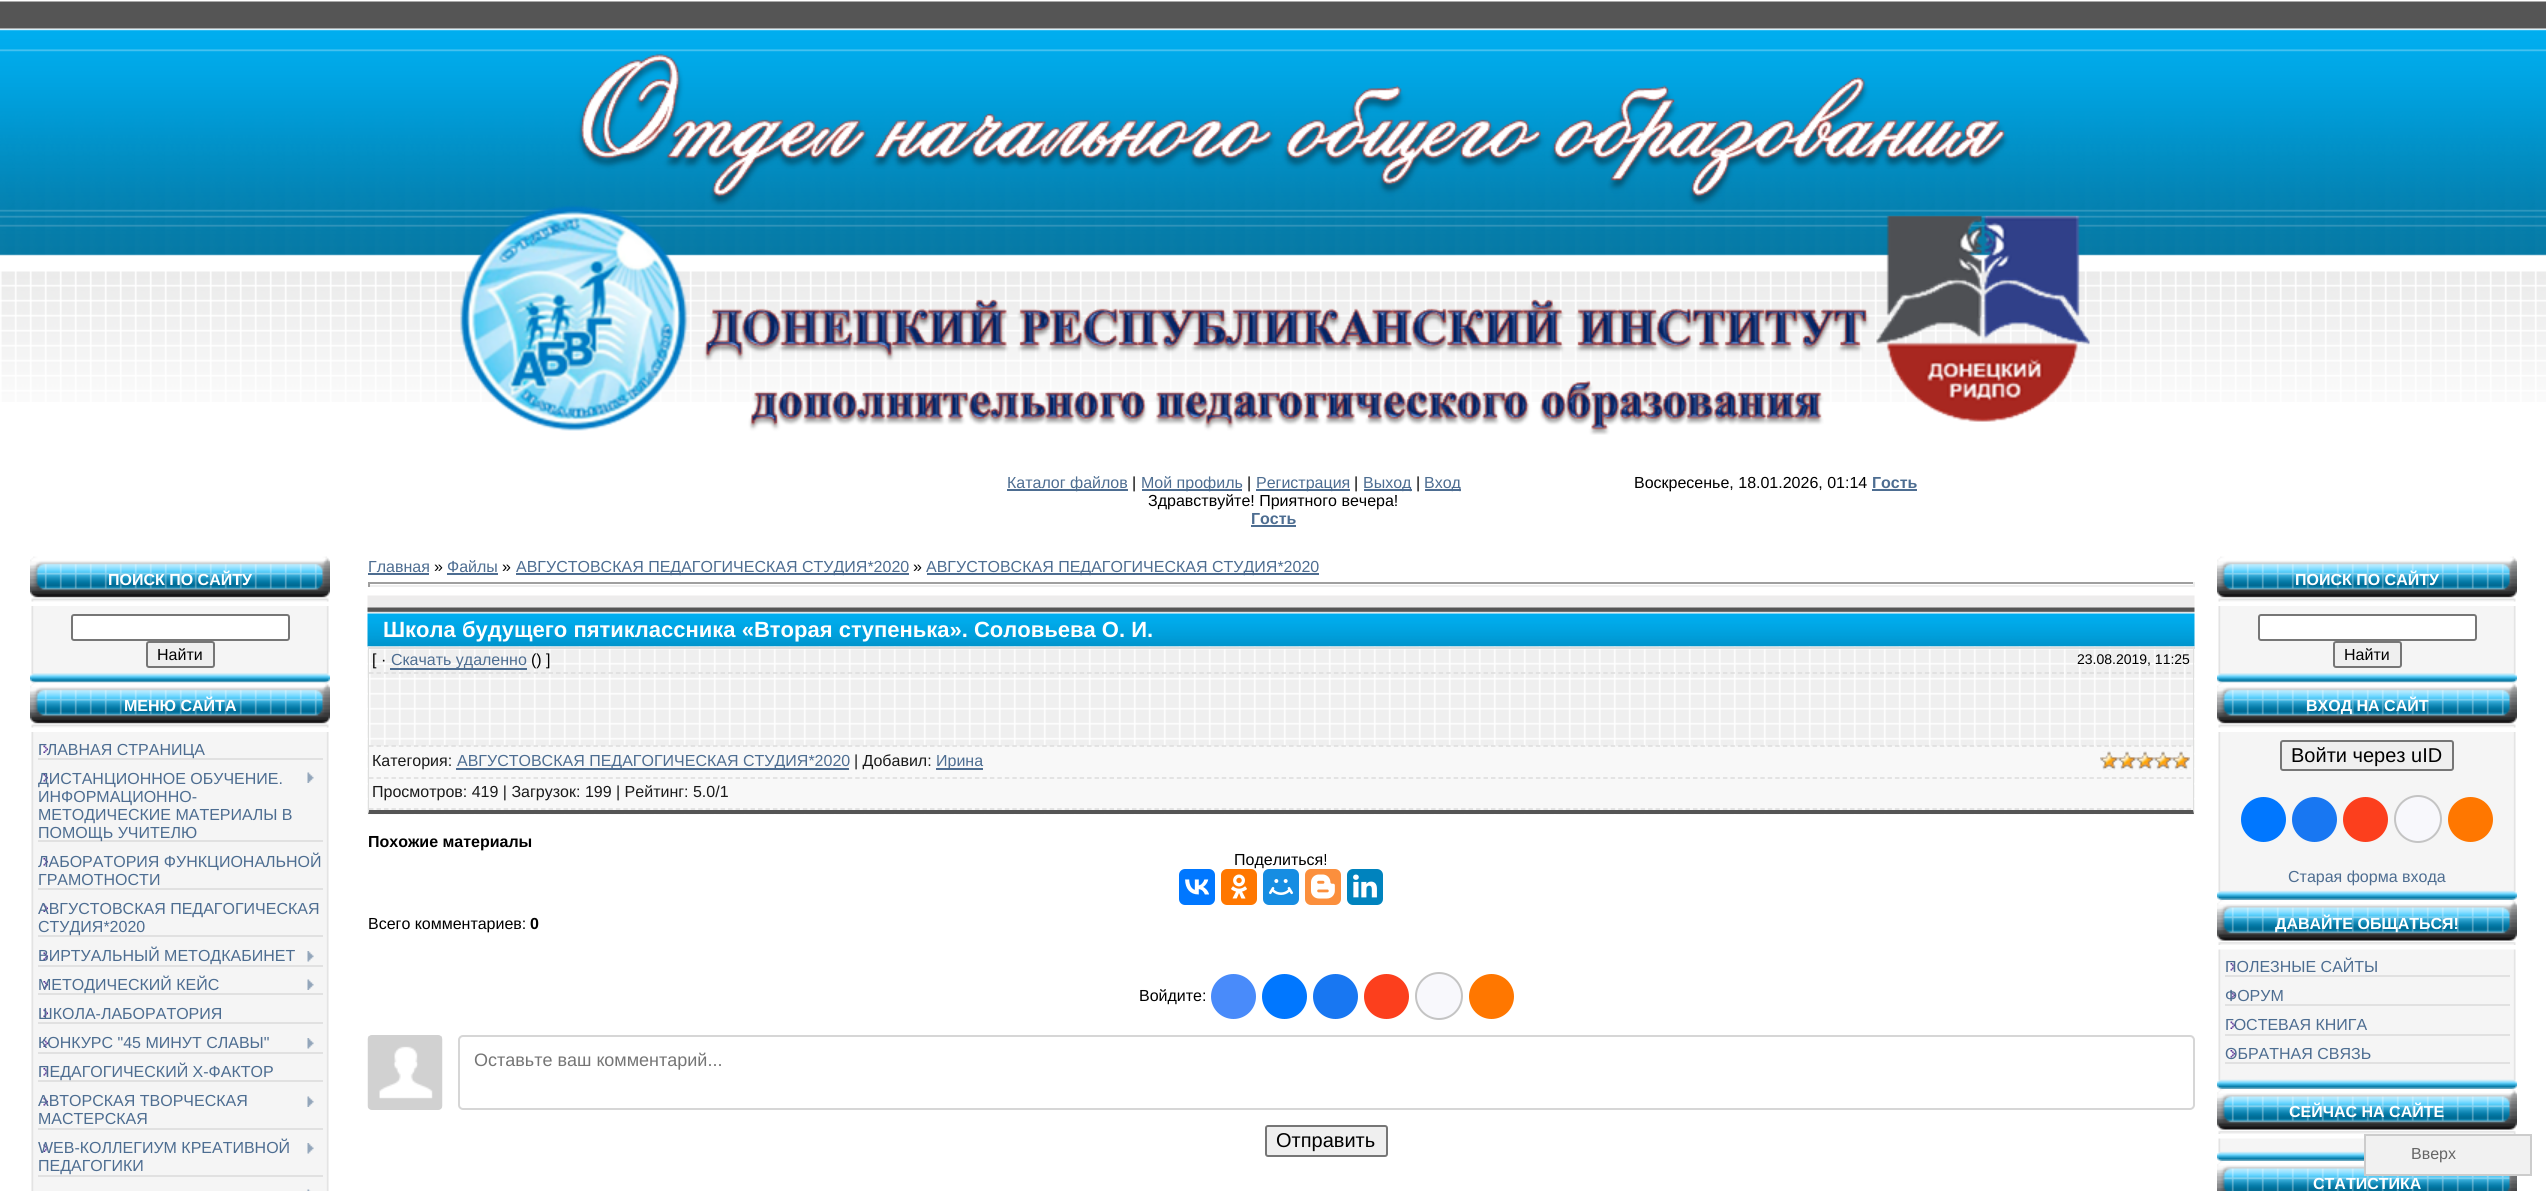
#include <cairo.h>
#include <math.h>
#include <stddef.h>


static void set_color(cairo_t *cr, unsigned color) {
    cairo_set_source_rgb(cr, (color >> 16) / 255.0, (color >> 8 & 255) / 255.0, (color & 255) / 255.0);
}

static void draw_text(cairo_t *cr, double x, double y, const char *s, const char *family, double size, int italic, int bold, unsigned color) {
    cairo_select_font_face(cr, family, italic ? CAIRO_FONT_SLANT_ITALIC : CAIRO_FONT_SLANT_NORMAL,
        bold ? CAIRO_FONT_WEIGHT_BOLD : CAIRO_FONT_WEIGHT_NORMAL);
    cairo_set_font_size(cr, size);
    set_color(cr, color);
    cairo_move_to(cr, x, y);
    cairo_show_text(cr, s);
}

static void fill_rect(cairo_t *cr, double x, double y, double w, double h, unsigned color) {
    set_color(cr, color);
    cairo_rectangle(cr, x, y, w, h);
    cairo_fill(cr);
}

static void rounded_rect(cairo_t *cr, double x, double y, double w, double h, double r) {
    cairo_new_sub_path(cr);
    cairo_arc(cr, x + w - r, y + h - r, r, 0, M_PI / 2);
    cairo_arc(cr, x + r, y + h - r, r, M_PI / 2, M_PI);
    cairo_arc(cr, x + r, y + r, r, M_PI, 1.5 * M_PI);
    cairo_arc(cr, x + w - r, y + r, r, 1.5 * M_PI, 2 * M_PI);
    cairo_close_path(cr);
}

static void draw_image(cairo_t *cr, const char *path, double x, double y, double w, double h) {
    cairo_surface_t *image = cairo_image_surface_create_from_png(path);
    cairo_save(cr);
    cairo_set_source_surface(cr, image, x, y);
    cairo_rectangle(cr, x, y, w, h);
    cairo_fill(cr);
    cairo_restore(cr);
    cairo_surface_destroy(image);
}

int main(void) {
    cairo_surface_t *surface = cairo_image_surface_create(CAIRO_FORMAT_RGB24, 2546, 1191);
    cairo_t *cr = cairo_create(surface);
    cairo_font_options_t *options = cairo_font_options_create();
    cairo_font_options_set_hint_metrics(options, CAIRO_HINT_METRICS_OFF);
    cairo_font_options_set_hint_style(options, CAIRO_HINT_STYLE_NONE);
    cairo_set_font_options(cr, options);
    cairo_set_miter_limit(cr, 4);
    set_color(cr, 0xFFFFFF);
    cairo_paint(cr);
    draw_image(cr, "assets/img1.png", 0, 1, 2546, 401);
    draw_image(cr, "assets/img2.png", 460, 53, 1630, 382);
    fill_rect(cr, 1007, 489, 121, 2, 0x4D6D91);
    draw_text(cr, 1007, 488, "Каталог файлов", "Liberation Sans", 16, 0, 0, 0x4D6D91);
    draw_text(cr, 1132, 488, "|", "Liberation Sans", 16, 0, 0, 0x000000);
    fill_rect(cr, 1142, 489, 100, 2, 0x4D6D91);
    draw_text(cr, 1141, 488, "Мой профиль", "Liberation Sans", 16, 0, 0, 0x4D6D91);
    draw_text(cr, 1247, 488, "|", "Liberation Sans", 16, 0, 0, 0x000000);
    fill_rect(cr, 1256, 489, 94, 2, 0x4D6D91);
    draw_text(cr, 1256, 488, "Регистрация", "Liberation Sans", 16, 0, 0, 0x4D6D91);
    draw_text(cr, 1354, 488, "|", "Liberation Sans", 16, 0, 0, 0x000000);
    fill_rect(cr, 1364, 489, 48, 2, 0x4D6D91);
    draw_text(cr, 1363, 488, "Выход", "Liberation Sans", 16, 0, 0, 0x4D6D91);
    draw_text(cr, 1416, 488, "|", "Liberation Sans", 16, 0, 0, 0x000000);
    fill_rect(cr, 1425, 489, 36, 2, 0x4D6D91);
    draw_text(cr, 1424, 488, "Вход", "Liberation Sans", 16, 0, 0, 0x4D6D91);
    draw_text(cr, 1634, 488, "Воскресенье, 18.01.2026, 01:14", "Liberation Sans", 16, 0, 0, 0x000000);
    draw_text(cr, 1872, 488, "Гость", "Liberation Sans", 16, 0, 1, 0x4D6D91);
    fill_rect(cr, 1872, 489, 45, 2, 0x4D6D91);
    draw_text(cr, 1148, 506, "Здравствуйте! Приятного вечера!", "Liberation Sans", 16, 0, 0, 0x000000);
    draw_text(cr, 1251, 524, "Гость", "Liberation Sans", 16, 0, 1, 0x4D6D91);
    fill_rect(cr, 1251, 525, 45, 2, 0x4D6D91);
    draw_image(cr, "assets/img3.png", 30, 556, 300, 46);
    draw_text(cr, 108, 585, "ПОИСК ПО САЙТУ", "Liberation Sans", 16, 0, 1, 0xFFFFFF);
    draw_image(cr, "assets/img4.png", 30, 606, 300, 77);
    rounded_rect(cr, 72, 615, 217, 25, 2);
    cairo_fill_preserve(cr);
    set_color(cr, 0x767676);
    cairo_stroke(cr);
    set_color(cr, 0xEFEFEF);
    rounded_rect(cr, 147, 642, 67, 25, 2);
    cairo_fill_preserve(cr);
    set_color(cr, 0x767676);
    cairo_stroke(cr);
    draw_text(cr, 157, 660, "Найти", "Liberation Sans", 16, 0, 0, 0x000000);
    draw_image(cr, "assets/img5.png", 30, 682, 300, 46);
    draw_text(cr, 124, 711, "МЕНЮ САЙТА", "Liberation Sans", 16, 0, 1, 0xFFFFFF);
    draw_image(cr, "assets/img6.png", 31, 732, 298, 459);
    draw_image(cr, "assets/img7.png", 42, 745, 6, 8);
    fill_rect(cr, 38, 758, 285, 2, 0xE1E1E1);
    draw_text(cr, 38, 755, "ГЛАВНАЯ СТРАНИЦА", "Liberation Sans", 16, 0, 0, 0x4D6D91);
    draw_image(cr, "assets/img8.png", 42, 774, 6, 8);
    fill_rect(cr, 38, 840, 285, 2, 0xE1E1E1);
    draw_text(cr, 38, 784, "ДИСТАНЦИОННОЕ ОБУЧЕНИЕ.", "Liberation Sans", 16, 0, 0, 0x4D6D91);
    draw_image(cr, "assets/img9.png", 307, 772, 7, 11);
    draw_text(cr, 38, 802, "ИНФОРМАЦИОННО-", "Liberation Sans", 16, 0, 0, 0x4D6D91);
    draw_text(cr, 38, 820, "МЕТОДИЧЕСКИЕ МАТЕРИАЛЫ В", "Liberation Sans", 16, 0, 0, 0x4D6D91);
    draw_text(cr, 38, 838, "ПОМОЩЬ УЧИТЕЛЮ", "Liberation Sans", 16, 0, 0, 0x4D6D91);
    draw_image(cr, "assets/img8.png", 42, 858, 6, 8);
    fill_rect(cr, 38, 888, 285, 2, 0xE1E1E1);
    draw_text(cr, 38, 867, "ЛАБОРАТОРИЯ ФУНКЦИОНАЛЬНОЙ", "Liberation Sans", 16, 0, 0, 0x4D6D91);
    draw_text(cr, 38, 885, "ГРАМОТНОСТИ", "Liberation Sans", 16, 0, 0, 0x4D6D91);
    draw_image(cr, "assets/img7.png", 42, 904, 6, 8);
    fill_rect(cr, 38, 935, 285, 2, 0xE1E1E1);
    draw_text(cr, 38, 914, "АВГУСТОВСКАЯ ПЕДАГОГИЧЕСКАЯ", "Liberation Sans", 16, 0, 0, 0x4D6D91);
    draw_text(cr, 38, 932, "СТУДИЯ*2020", "Liberation Sans", 16, 0, 0, 0x4D6D91);
    draw_image(cr, "assets/img7.png", 42, 952, 6, 8);
    fill_rect(cr, 38, 965, 285, 2, 0xE1E1E1);
    draw_text(cr, 38, 961, "ВИРТУАЛЬНЫЙ МЕТОДКАБИНЕТ", "Liberation Sans", 16, 0, 0, 0x4D6D91);
    draw_image(cr, "assets/img10.png", 307, 951, 7, 11);
    draw_image(cr, "assets/img8.png", 42, 981, 6, 8);
    fill_rect(cr, 38, 993, 285, 2, 0xE1E1E1);
    draw_text(cr, 38, 990, "МЕТОДИЧЕСКИЙ КЕЙС", "Liberation Sans", 16, 0, 0, 0x4D6D91);
    draw_image(cr, "assets/img9.png", 307, 979, 7, 11);
    draw_image(cr, "assets/img7.png", 42, 1009, 6, 8);
    fill_rect(cr, 38, 1022, 285, 2, 0xE1E1E1);
    draw_text(cr, 38, 1019, "ШКОЛА-ЛАБОРАТОРИЯ", "Liberation Sans", 16, 0, 0, 0x4D6D91);
    draw_image(cr, "assets/img7.png", 42, 1039, 6, 8);
    fill_rect(cr, 38, 1052, 285, 2, 0xE1E1E1);
    draw_text(cr, 38, 1048, "КОНКУРС \"45 МИНУТ СЛАВЫ\"", "Liberation Sans", 16, 0, 0, 0x4D6D91);
    draw_image(cr, "assets/img10.png", 307, 1038, 7, 11);
    draw_image(cr, "assets/img8.png", 42, 1068, 6, 8);
    fill_rect(cr, 38, 1080, 285, 2, 0xE1E1E1);
    draw_text(cr, 38, 1077, "ПЕДАГОГИЧЕСКИЙ Х-ФАКТОР", "Liberation Sans", 16, 0, 0, 0x4D6D91);
    draw_image(cr, "assets/img8.png", 42, 1098, 6, 8);
    fill_rect(cr, 38, 1128, 285, 2, 0xE1E1E1);
    draw_text(cr, 38, 1106, "АВТОРСКАЯ ТВОРЧЕСКАЯ", "Liberation Sans", 16, 0, 0, 0x4D6D91);
    draw_image(cr, "assets/img9.png", 307, 1096, 7, 11);
    draw_text(cr, 38, 1124, "МАСТЕРСКАЯ", "Liberation Sans", 16, 0, 0, 0x4D6D91);
    draw_image(cr, "assets/img7.png", 42, 1144, 6, 8);
    fill_rect(cr, 38, 1175, 285, 2, 0xE1E1E1);
    draw_text(cr, 38, 1153, "WEB-КОЛЛЕГИУМ КРЕАТИВНОЙ", "Liberation Sans", 16, 0, 0, 0x4D6D91);
    draw_image(cr, "assets/img10.png", 307, 1143, 7, 11);
    draw_text(cr, 38, 1171, "ПЕДАГОГИКИ", "Liberation Sans", 16, 0, 0, 0x4D6D91);
    draw_image(cr, "assets/img11.png", 307, 1189, 4, 2);
    draw_text(cr, 368, 572, "Главная", "Liberation Sans", 16, 0, 0, 0x4D6D91);
    fill_rect(cr, 368, 573, 61, 2, 0x4D6D91);
    draw_text(cr, 434, 572, "»", "Liberation Sans", 16, 0, 0, 0x000000);
    draw_text(cr, 447, 572, "Файлы", "Liberation Sans", 16, 0, 0, 0x4D6D91);
    fill_rect(cr, 447, 573, 51, 2, 0x4D6D91);
    draw_text(cr, 502, 572, "»", "Liberation Sans", 16, 0, 0, 0x000000);
    fill_rect(cr, 516, 573, 393, 2, 0x4D6D91);
    draw_text(cr, 516, 572, "АВГУСТОВСКАЯ ПЕДАГОГИЧЕСКАЯ СТУДИЯ*2020", "Liberation Sans", 16, 0, 0, 0x4D6D91);
    draw_text(cr, 913, 572, "»", "Liberation Sans", 16, 0, 0, 0x000000);
    fill_rect(cr, 927, 573, 392, 2, 0x4D6D91);
    draw_text(cr, 926, 572, "АВГУСТОВСКАЯ ПЕДАГОГИЧЕСКАЯ СТУДИЯ*2020", "Liberation Sans", 16, 0, 0, 0x4D6D91);
    fill_rect(cr, 368, 582, 1827, 2, 0x9F9F9F);
    fill_rect(cr, 2193, 582, 2, 5, 0xEEEEEE);
    fill_rect(cr, 368, 585, 1827, 2, 0xEEEEEE);
    fill_rect(cr, 368, 582, 2, 5, 0x9F9F9F);
    draw_image(cr, "assets/img12.png", 367, 595, 1828, 52);
    draw_text(cr, 383, 637, "Школа будущего пятиклассника «Вторая ступенька». Соловьева О. И.", "Liberation Sans", 22, 0, 1, 0xFFFFFF);
    draw_image(cr, "assets/img13.png", 367, 646, 1828, 169);
    fill_rect(cr, 368, 647, 1827, 2, 0xDEDFDE);
    cairo_new_path(cr);
    cairo_move_to(cr, 2194, 646);
    cairo_line_to(cr, 2194, 814);
    cairo_line_to(cr, 2193, 810);
    cairo_line_to(cr, 2193, 648);
    cairo_close_path(cr);
    cairo_fill(cr);
    set_color(cr, 0x555555);
    cairo_new_path(cr);
    cairo_move_to(cr, 2194, 814);
    cairo_line_to(cr, 368, 814);
    cairo_line_to(cr, 369, 810);
    cairo_line_to(cr, 2193, 810);
    cairo_close_path(cr);
    cairo_fill(cr);
    set_color(cr, 0xDEDFDE);
    cairo_new_path(cr);
    cairo_move_to(cr, 368, 814);
    cairo_line_to(cr, 368, 646);
    cairo_line_to(cr, 369, 648);
    cairo_line_to(cr, 369, 810);
    cairo_close_path(cr);
    cairo_fill(cr);
    draw_text(cr, 372, 665, "[ ·", "Liberation Sans", 16, 0, 0, 0x000000);
    fill_rect(cr, 390, 668, 137, 2, 0x4D6D91);
    draw_text(cr, 391, 665, "Скачать удаленно", "Liberation Sans", 16, 0, 0, 0x4D6D91);
    draw_text(cr, 531, 665, "() ]", "Liberation Sans", 16, 0, 0, 0x000000);
    draw_text(cr, 2077, 664, "23.08.2019, 11:25", "Liberation Sans", 14, 0, 0, 0x000000);
    cairo_new_path(cr);
    cairo_move_to(cr, 369, 673);
    cairo_line_to(cr, 2193, 673);
    set_color(cr, 0xDDDDDD);
    cairo_set_line_width(cr, 1.5);
    cairo_set_dash(cr, (double[]){4.5, 2.98}, 2, 0);
    cairo_stroke(cr);
    fill_rect(cr, 369, 746, 1824, 64, 0xF8F8F8);
    cairo_new_path(cr);
    cairo_move_to(cr, 369, 746);
    cairo_line_to(cr, 2193, 746);
    set_color(cr, 0xDDDDDD);
    cairo_stroke(cr);
    cairo_new_path(cr);
    cairo_move_to(cr, 369, 778);
    cairo_line_to(cr, 2193, 778);
    cairo_stroke(cr);
    draw_text(cr, 372, 766, "Категория:", "Liberation Sans", 16, 0, 0, 0x1A1A1A);
    fill_rect(cr, 456, 768, 393, 2, 0x4D6D91);
    draw_text(cr, 457, 766, "АВГУСТОВСКАЯ ПЕДАГОГИЧЕСКАЯ СТУДИЯ*2020", "Liberation Sans", 16, 0, 0, 0x4D6D91);
    draw_text(cr, 854, 766, "| Добавил:", "Liberation Sans", 16, 0, 0, 0x1A1A1A);
    fill_rect(cr, 936, 768, 47, 2, 0x4D6D91);
    draw_text(cr, 936, 766, "Ирина", "Liberation Sans", 16, 0, 0, 0x4D6D91);
    draw_image(cr, "assets/img14.png", 2100, 751, 90, 19);
    draw_image(cr, "assets/img15.png", 2100, 751, 90, 19);
    cairo_new_path(cr);
    cairo_move_to(cr, 369, 809);
    cairo_line_to(cr, 2193, 809);
    set_color(cr, 0xDDDDDD);
    cairo_stroke(cr);
    draw_text(cr, 372, 797, "Просмотров: 419 | Загрузок: 199 | Рейтинг: 5.0/1", "Liberation Sans", 16, 0, 0, 0x1A1A1A);
    draw_text(cr, 368, 847, "Похожие материалы", "Liberation Sans", 16, 0, 1, 0x000000);
    draw_text(cr, 1234, 865, "Поделиться!", "Liberation Sans", 16, 0, 0, 0x000000);
    set_color(cr, 0x0077FF);
    rounded_rect(cr, 1179, 869, 36, 36, 6);
    cairo_fill(cr);
    draw_image(cr, "assets/img16.png", 1185, 879, 24, 16);
    set_color(cr, 0xFF7700);
    rounded_rect(cr, 1221, 869, 36, 36, 6);
    cairo_fill(cr);
    draw_image(cr, "assets/img17.png", 1231, 874, 16, 25);
    set_color(cr, 0x168DE2);
    rounded_rect(cr, 1263, 869, 36, 36, 6);
    cairo_fill(cr);
    draw_image(cr, "assets/img18.png", 1269, 879, 24, 16);
    set_color(cr, 0xFB8F3D);
    rounded_rect(cr, 1305, 869, 36, 36, 6);
    cairo_fill(cr);
    draw_image(cr, "assets/img19.png", 1311, 874, 24, 25);
    set_color(cr, 0x0083BE);
    rounded_rect(cr, 1347, 869, 36, 36, 6);
    cairo_fill(cr);
    draw_image(cr, "assets/img20.png", 1353, 874, 24, 24);
    draw_text(cr, 368, 929, "Всего комментариев:", "Liberation Sans", 16, 0, 0, 0x000000);
    draw_text(cr, 530, 929, "0", "Liberation Sans", 16, 0, 1, 0x000000);
    draw_text(cr, 1139, 1001, "Войдите:", "Liberation Sans", 16, 0, 0, 0x000000);
    set_color(cr, 0x498BFA);
    cairo_new_path(cr);
    cairo_arc(cr, 1233.5, 996.5, 22.5, 0, 2 * M_PI);
    cairo_fill(cr);
    set_color(cr, 0x0077FF);
    cairo_arc(cr, 1284.5, 996.5, 22.5, 0, 2 * M_PI);
    cairo_fill(cr);
    set_color(cr, 0x1877F2);
    cairo_arc(cr, 1335.5, 996.5, 22.5, 0, 2 * M_PI);
    cairo_fill(cr);
    set_color(cr, 0xFC3F1D);
    cairo_arc(cr, 1386.5, 996.5, 22.5, 0, 2 * M_PI);
    cairo_fill(cr);
    set_color(cr, 0xF8F8FC);
    cairo_arc(cr, 1439, 996, 23, 0, 2 * M_PI);
    cairo_fill_preserve(cr);
    set_color(cr, 0xC4C4C4);
    cairo_set_line_width(cr, 2);
    cairo_set_dash(cr, NULL, 0, 0);
    cairo_stroke(cr);
    set_color(cr, 0xFF7700);
    cairo_arc(cr, 1491.5, 996.5, 22.5, 0, 2 * M_PI);
    cairo_fill(cr);
    draw_image(cr, "assets/img21.png", 367, 1035, 76, 75);
    rounded_rect(cr, 459, 1036, 1735, 73, 4);
    set_color(cr, 0xD6D6D6);
    cairo_stroke(cr);
    draw_text(cr, 474, 1066, "Оставьте ваш комментарий...", "Liberation Sans", 18, 0, 0, 0x757575);
    set_color(cr, 0xEFEFEF);
    rounded_rect(cr, 1266, 1126, 121, 30, 2);
    cairo_fill_preserve(cr);
    set_color(cr, 0x767676);
    cairo_stroke(cr);
    draw_text(cr, 1276, 1147, "Отправить", "Liberation Sans", 20, 0, 0, 0x000000);
    draw_image(cr, "assets/img22.png", 2217, 556, 300, 46);
    draw_text(cr, 2295, 585, "ПОИСК ПО САЙТУ", "Liberation Sans", 16, 0, 1, 0xFFFFFF);
    draw_image(cr, "assets/img4.png", 2217, 606, 300, 77);
    rounded_rect(cr, 2259, 615, 217, 25, 2);
    cairo_fill_preserve(cr);
    set_color(cr, 0x767676);
    cairo_stroke(cr);
    set_color(cr, 0xEFEFEF);
    rounded_rect(cr, 2334, 642, 67, 25, 2);
    cairo_fill_preserve(cr);
    set_color(cr, 0x767676);
    cairo_stroke(cr);
    draw_text(cr, 2344, 660, "Найти", "Liberation Sans", 16, 0, 0, 0x000000);
    draw_image(cr, "assets/img23.png", 2217, 682, 300, 46);
    draw_text(cr, 2306, 711, "ВХОД НА САЙТ", "Liberation Sans", 16, 0, 1, 0xFFFFFF);
    draw_image(cr, "assets/img24.png", 2217, 732, 300, 168);
    set_color(cr, 0xEFEFEF);
    rounded_rect(cr, 2281, 741, 172, 29, 2);
    cairo_fill_preserve(cr);
    set_color(cr, 0x767676);
    cairo_stroke(cr);
    draw_text(cr, 2291, 762, "Войти через uID", "Liberation Sans", 20, 0, 0, 0x000000);
    set_color(cr, 0x0077FF);
    cairo_new_path(cr);
    cairo_arc(cr, 2263.5, 819.5, 22.5, 0, 2 * M_PI);
    cairo_fill(cr);
    set_color(cr, 0x1877F2);
    cairo_arc(cr, 2314.5, 819.5, 22.5, 0, 2 * M_PI);
    cairo_fill(cr);
    set_color(cr, 0xFC3F1D);
    cairo_arc(cr, 2365.5, 819.5, 22.5, 0, 2 * M_PI);
    cairo_fill(cr);
    set_color(cr, 0xF8F8FC);
    cairo_arc(cr, 2418, 819, 23, 0, 2 * M_PI);
    cairo_fill_preserve(cr);
    set_color(cr, 0xC4C4C4);
    cairo_stroke(cr);
    set_color(cr, 0xFF7700);
    cairo_arc(cr, 2470.5, 819.5, 22.5, 0, 2 * M_PI);
    cairo_fill(cr);
    draw_text(cr, 2288, 882, "Старая форма входа", "Liberation Sans", 16, 0, 0, 0x4D6D91);
    draw_image(cr, "assets/img25.png", 2217, 900, 300, 45);
    draw_text(cr, 2275, 929, "ДАВАЙТЕ ОБЩАТЬСЯ!", "Liberation Sans", 16, 0, 1, 0xFFFFFF);
    draw_image(cr, "assets/img26.png", 2217, 949, 300, 140);
    draw_image(cr, "assets/img27.png", 2229, 963, 6, 8);
    fill_rect(cr, 2225, 975, 285, 2, 0xE1E1E1);
    draw_text(cr, 2225, 972, "ПОЛЕЗНЫЕ САЙТЫ", "Liberation Sans", 16, 0, 0, 0x4D6D91);
    draw_image(cr, "assets/img28.png", 2229, 991, 6, 8);
    fill_rect(cr, 2225, 1004, 285, 2, 0xE1E1E1);
    draw_text(cr, 2225, 1001, "ФОРУМ", "Liberation Sans", 16, 0, 0, 0x4D6D91);
    draw_image(cr, "assets/img28.png", 2229, 1021, 6, 8);
    fill_rect(cr, 2225, 1034, 285, 2, 0xE1E1E1);
    draw_text(cr, 2225, 1030, "ГОСТЕВАЯ КНИГА", "Liberation Sans", 16, 0, 0, 0x4D6D91);
    draw_image(cr, "assets/img27.png", 2229, 1050, 6, 8);
    fill_rect(cr, 2225, 1062, 285, 2, 0xE1E1E1);
    draw_text(cr, 2225, 1059, "ОБРАТНАЯ СВЯЗЬ", "Liberation Sans", 16, 0, 0, 0x4D6D91);
    draw_image(cr, "assets/img25.png", 2217, 1089, 300, 45);
    draw_text(cr, 2289, 1117, "СЕЙЧАС НА САЙТЕ", "Liberation Sans", 16, 0, 1, 0xFFFFFF);
    draw_image(cr, "assets/img29.png", 2217, 1138, 147, 23);
    draw_image(cr, "assets/img30.png", 2217, 1161, 300, 30);
    draw_text(cr, 2313, 1189, "СТАТИСТИКА", "Liberation Sans", 16, 0, 1, 0xFFFFFF);
    set_color(cr, 0xF1F1F1);
    cairo_rectangle(cr, 2365, 1135, 166, 40);
    cairo_fill_preserve(cr);
    set_color(cr, 0xCCCCCC);
    cairo_stroke(cr);
    draw_text(cr, 2411, 1159, "Вверх", "Liberation Sans", 16, 0, 0, 0x666666);
    cairo_surface_write_to_png(surface, "output.png");
    cairo_font_options_destroy(options);
    cairo_destroy(cr);
    cairo_surface_destroy(surface);
    return 0;
}
